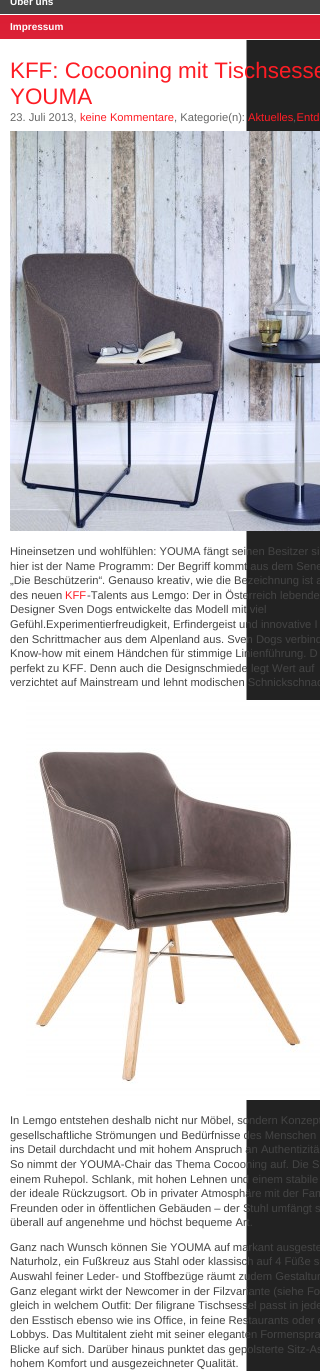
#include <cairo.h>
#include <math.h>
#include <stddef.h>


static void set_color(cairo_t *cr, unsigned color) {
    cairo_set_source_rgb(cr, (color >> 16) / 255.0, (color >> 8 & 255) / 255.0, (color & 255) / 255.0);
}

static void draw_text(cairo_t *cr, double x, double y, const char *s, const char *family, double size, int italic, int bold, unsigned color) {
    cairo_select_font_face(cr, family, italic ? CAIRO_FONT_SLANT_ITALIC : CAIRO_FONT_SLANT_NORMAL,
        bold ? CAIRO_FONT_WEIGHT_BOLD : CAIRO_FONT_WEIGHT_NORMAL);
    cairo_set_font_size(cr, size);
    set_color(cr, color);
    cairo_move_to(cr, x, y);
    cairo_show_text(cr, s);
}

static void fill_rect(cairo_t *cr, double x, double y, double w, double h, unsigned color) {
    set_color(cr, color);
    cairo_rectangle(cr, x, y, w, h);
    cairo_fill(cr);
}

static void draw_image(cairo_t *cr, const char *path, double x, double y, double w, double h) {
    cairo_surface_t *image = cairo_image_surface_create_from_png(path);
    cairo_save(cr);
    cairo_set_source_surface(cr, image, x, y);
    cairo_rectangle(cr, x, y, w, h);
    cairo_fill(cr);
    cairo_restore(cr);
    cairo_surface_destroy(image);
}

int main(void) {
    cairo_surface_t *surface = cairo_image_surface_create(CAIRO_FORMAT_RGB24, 320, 1371);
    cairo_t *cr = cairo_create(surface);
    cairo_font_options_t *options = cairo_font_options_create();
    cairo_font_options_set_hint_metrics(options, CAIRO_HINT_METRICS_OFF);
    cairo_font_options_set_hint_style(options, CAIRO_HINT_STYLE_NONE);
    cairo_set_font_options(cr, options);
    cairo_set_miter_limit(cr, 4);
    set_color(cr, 0xFFFFFF);
    cairo_paint(cr);
    draw_image(cr, "assets/img1.png", 0, 40, 320, 1331);
    draw_image(cr, "assets/img2.png", 0, 15, 320, 24);
    fill_rect(cr, 0, 0, 320, 14, 0x444444);
    draw_text(cr, 10, 5, "Über uns", "Liberation Sans", 10, 0, 1, 0xFFFFFF);
    draw_text(cr, 10, 30, "Impressum", "Liberation Sans", 10, 0, 1, 0xFFFFFF);
    draw_text(cr, 10, 78, "KFF: Cocooning mit Tischsesse", "Liberation Sans", 22.4, 0, 0, 0xFD1C24);
    draw_text(cr, 10, 104, "YOUMA", "Liberation Sans", 22.4, 0, 0, 0xFD1C24);
    draw_text(cr, 10, 121, "23. Juli 2013,", "Liberation Sans", 11.2, 0, 0, 0x666666);
    draw_text(cr, 80, 121, "keine Kommentare", "Liberation Sans", 11.2, 0, 0, 0xFD1C24);
    draw_text(cr, 174, 121, ", Kategorie(n):", "Liberation Sans", 11.2, 0, 0, 0x666666);
    draw_text(cr, 248, 121, "Aktuelles Entd", "Liberation Sans", 11.2, 0, 0, 0xFD1C24);
    draw_text(cr, 293, 121, ",", "Liberation Sans", 11.2, 0, 0, 0x666666);
    draw_image(cr, "assets/img3.png", 10, 131, 310, 400);
    draw_text(cr, 10, 555, "Hineinsetzen und wohlfühlen: YOUMA fängt seinen Besitzer si", "Liberation Sans", 11.2, 0, 0, 0x444444);
    draw_text(cr, 10, 570, "hier ist der Name Programm: Der Begriff kommt aus dem Sene", "Liberation Sans", 11.2, 0, 0, 0x444444);
    draw_text(cr, 10, 584, "„Die Beschützerin“. Genauso kreativ, wie die Bezeichnung ist a", "Liberation Sans", 11.2, 0, 0, 0x444444);
    draw_text(cr, 10, 599, "des neuen", "Liberation Sans", 11.2, 0, 0, 0x444444);
    draw_text(cr, 65, 599, "KFF", "Liberation Sans", 11.2, 0, 0, 0xFD1C24);
    draw_text(cr, 87, 599, "-Talents aus Lemgo: Der in Österreich lebende", "Liberation Sans", 11.2, 0, 0, 0x444444);
    draw_text(cr, 10, 613, "Designer Sven Dogs entwickelte das Modell mit viel", "Liberation Sans", 11.2, 0, 0, 0x444444);
    draw_text(cr, 10, 628, "Gefühl.Experimentierfreudigkeit, Erfindergeist und innovative I", "Liberation Sans", 11.2, 0, 0, 0x444444);
    draw_text(cr, 10, 643, "den Schrittmacher aus dem Alpenland aus. Sven Dogs verbind", "Liberation Sans", 11.2, 0, 0, 0x444444);
    draw_text(cr, 10, 657, "Know-how mit einem Händchen für stimmige Linienführung. D", "Liberation Sans", 11.2, 0, 0, 0x444444);
    draw_text(cr, 10, 672, "perfekt zu KFF. Denn auch die Designschmiede legt Wert auf", "Liberation Sans", 11.2, 0, 0, 0x444444);
    draw_text(cr, 10, 686, "verzichtet auf Mainstream und lehnt modischen Schnickschnac", "Liberation Sans", 11.2, 0, 0, 0x444444);
    draw_image(cr, "assets/img4.png", 26, 700, 294, 400);
    draw_text(cr, 10, 1124, "In Lemgo entstehen deshalb nicht nur Möbel, sondern Konzept", "Liberation Sans", 11.2, 0, 0, 0x444444);
    draw_text(cr, 10, 1139, "gesellschaftliche Strömungen und Bedürfnisse des Menschen", "Liberation Sans", 11.2, 0, 0, 0x444444);
    draw_text(cr, 10, 1153, "ins Detail durchdacht und mit hohem Anspruch an Authentizitä", "Liberation Sans", 11.2, 0, 0, 0x444444);
    draw_text(cr, 10, 1168, "So nimmt der YOUMA-Chair das Thema Cocooning auf. Die S", "Liberation Sans", 11.2, 0, 0, 0x444444);
    draw_text(cr, 10, 1183, "einem Ruhepol. Schlank, mit hohen Lehnen und einem stabile", "Liberation Sans", 11.2, 0, 0, 0x444444);
    draw_text(cr, 10, 1197, "der ideale Rückzugsort. Ob in privater Atmosphäre mit der Fam", "Liberation Sans", 11.2, 0, 0, 0x444444);
    draw_text(cr, 10, 1212, "Freunden oder in öffentlichen Gebäuden – der Stuhl umfängt s", "Liberation Sans", 11.2, 0, 0, 0x444444);
    draw_text(cr, 10, 1226, "überall auf angenehme und höchst bequeme Art.", "Liberation Sans", 11.2, 0, 0, 0x444444);
    draw_text(cr, 10, 1251, "Ganz nach Wunsch können Sie YOUMA auf markant ausgeste", "Liberation Sans", 11.2, 0, 0, 0x444444);
    draw_text(cr, 10, 1265, "Naturholz, ein Fußkreuz aus Stahl oder klassisch auf 4 Füße s", "Liberation Sans", 11.2, 0, 0, 0x444444);
    draw_text(cr, 10, 1280, "Auswahl feiner Leder- und Stoffbezüge räumt zudem Gestaltun", "Liberation Sans", 11.2, 0, 0, 0x444444);
    draw_text(cr, 10, 1295, "Ganz elegant wirkt der Newcomer in der Filzvariante (siehe Fo", "Liberation Sans", 11.2, 0, 0, 0x444444);
    draw_text(cr, 10, 1309, "gleich in welchem Outfit: Der filigrane Tischsessel passt in jede", "Liberation Sans", 11.2, 0, 0, 0x444444);
    draw_text(cr, 10, 1324, "den Esstisch ebenso wie ins Office, in feine Restaurants oder e", "Liberation Sans", 11.2, 0, 0, 0x444444);
    draw_text(cr, 10, 1338, "Lobbys. Das Multitalent zieht mit seiner eleganten Formenspra", "Liberation Sans", 11.2, 0, 0, 0x444444);
    draw_text(cr, 10, 1353, "Blicke auf sich. Darüber hinaus punktet das gepolsterte Sitz-As", "Liberation Sans", 11.2, 0, 0, 0x444444);
    draw_text(cr, 10, 1367, "hohem Komfort und ausgezeichneter Qualität.", "Liberation Sans", 11.2, 0, 0, 0x444444);
    cairo_surface_write_to_png(surface, "output.png");
    cairo_font_options_destroy(options);
    cairo_destroy(cr);
    cairo_surface_destroy(surface);
    return 0;
}
